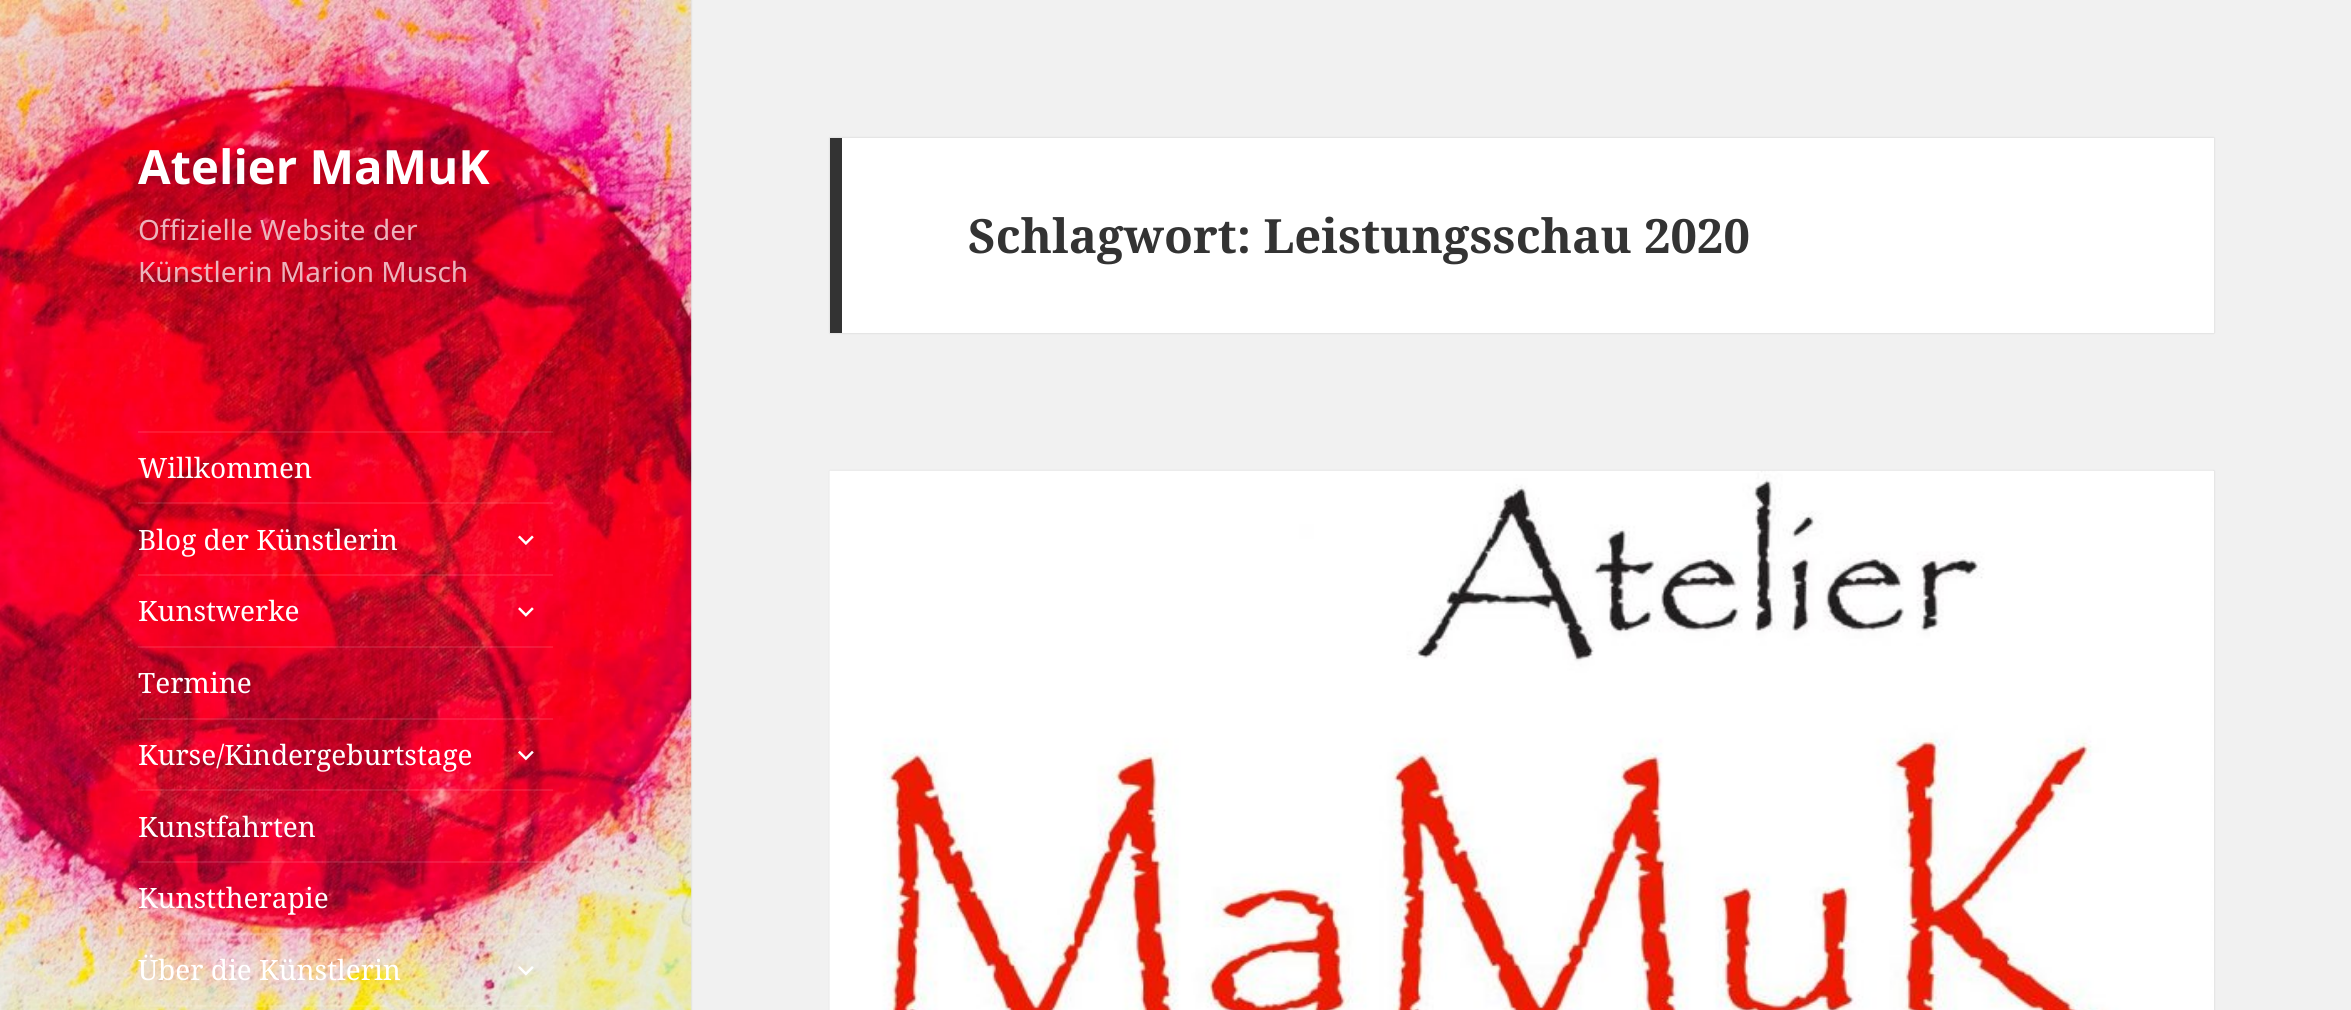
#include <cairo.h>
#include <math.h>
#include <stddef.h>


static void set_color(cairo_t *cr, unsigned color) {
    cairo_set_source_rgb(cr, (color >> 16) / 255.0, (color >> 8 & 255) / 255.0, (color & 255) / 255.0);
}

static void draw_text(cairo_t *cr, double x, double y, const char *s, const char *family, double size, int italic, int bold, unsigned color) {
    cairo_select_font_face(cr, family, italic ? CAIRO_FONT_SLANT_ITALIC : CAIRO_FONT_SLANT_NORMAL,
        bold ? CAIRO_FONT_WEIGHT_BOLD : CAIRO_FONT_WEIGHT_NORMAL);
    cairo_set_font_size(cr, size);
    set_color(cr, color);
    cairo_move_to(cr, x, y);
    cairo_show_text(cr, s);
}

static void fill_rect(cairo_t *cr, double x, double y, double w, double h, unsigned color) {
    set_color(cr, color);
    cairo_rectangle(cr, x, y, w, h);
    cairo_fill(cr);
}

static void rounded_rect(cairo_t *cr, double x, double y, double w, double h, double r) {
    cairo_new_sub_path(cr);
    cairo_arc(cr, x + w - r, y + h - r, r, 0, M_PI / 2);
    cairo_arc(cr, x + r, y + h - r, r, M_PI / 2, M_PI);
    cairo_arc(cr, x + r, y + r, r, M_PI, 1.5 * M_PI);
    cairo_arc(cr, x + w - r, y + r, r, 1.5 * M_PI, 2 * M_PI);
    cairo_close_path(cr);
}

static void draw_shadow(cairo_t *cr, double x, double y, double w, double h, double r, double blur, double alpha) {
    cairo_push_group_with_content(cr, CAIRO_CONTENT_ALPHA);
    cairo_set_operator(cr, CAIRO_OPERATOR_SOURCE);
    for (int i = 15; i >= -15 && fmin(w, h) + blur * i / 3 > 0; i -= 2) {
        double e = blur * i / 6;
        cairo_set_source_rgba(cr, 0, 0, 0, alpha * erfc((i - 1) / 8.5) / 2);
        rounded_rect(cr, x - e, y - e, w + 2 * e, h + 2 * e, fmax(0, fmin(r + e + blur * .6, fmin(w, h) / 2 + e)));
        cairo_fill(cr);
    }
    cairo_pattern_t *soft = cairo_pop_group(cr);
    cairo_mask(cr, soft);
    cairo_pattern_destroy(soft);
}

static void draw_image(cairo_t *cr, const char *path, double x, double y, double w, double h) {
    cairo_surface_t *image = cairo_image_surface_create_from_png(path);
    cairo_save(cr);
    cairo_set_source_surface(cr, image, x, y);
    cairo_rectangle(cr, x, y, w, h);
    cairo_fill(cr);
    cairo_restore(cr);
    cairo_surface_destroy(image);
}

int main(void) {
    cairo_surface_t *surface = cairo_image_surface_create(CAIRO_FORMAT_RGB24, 2351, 1010);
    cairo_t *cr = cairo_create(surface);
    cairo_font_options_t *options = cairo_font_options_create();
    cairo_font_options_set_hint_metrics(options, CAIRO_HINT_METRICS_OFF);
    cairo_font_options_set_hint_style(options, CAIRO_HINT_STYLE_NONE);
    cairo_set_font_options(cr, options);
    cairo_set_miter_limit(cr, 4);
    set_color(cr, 0xF1F1F1);
    cairo_paint(cr);
    set_color(cr, 0x000000);
    draw_shadow(cr, 0, 0, 691, 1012, 0, 1, 0.15);
    draw_image(cr, "assets/img1.png", 0, 0, 692, 1010);
    draw_text(cr, 138, 184, "Atelier MaMuK", "Noto Sans", 47.25, 0, 1, 0xFFFFFF);
    draw_text(cr, 138, 240, "Offizielle Website der", "Noto Sans", 28, 0, 0, 0xEDB3BC);
    draw_text(cr, 138, 282, "Künstlerin Marion Musch", "Noto Sans", 28, 0, 0, 0xEDB3BC);
    cairo_set_source_rgba(cr, 1, 1, 1, 0.1);
    cairo_rectangle(cr, 138, 431, 415, 2);
    cairo_fill(cr);
    draw_text(cr, 138, 478, "Willkommen", "Noto Serif", 28, 0, 0, 0xFFFFFF);
    cairo_set_source_rgba(cr, 1, 1, 1, 0.1);
    cairo_rectangle(cr, 138, 502, 415, 2);
    cairo_fill(cr);
    draw_text(cr, 138, 550, "Blog der Künstlerin", "Noto Serif", 28, 0, 0, 0xFFFFFF);
    draw_image(cr, "assets/img2.png", 518, 535, 16, 10);
    cairo_set_source_rgba(cr, 1, 1, 1, 0.1);
    cairo_rectangle(cr, 138, 574, 415, 2);
    cairo_fill(cr);
    draw_text(cr, 138, 621, "Kunstwerke", "Noto Serif", 28, 0, 0, 0xFFFFFF);
    draw_image(cr, "assets/img3.png", 518, 607, 16, 10);
    cairo_set_source_rgba(cr, 1, 1, 1, 0.1);
    cairo_rectangle(cr, 138, 646, 415, 2);
    cairo_fill(cr);
    draw_text(cr, 138, 693, "Termine", "Noto Serif", 28, 0, 0, 0xFFFFFF);
    cairo_set_source_rgba(cr, 1, 1, 1, 0.1);
    cairo_rectangle(cr, 138, 718, 415, 2);
    cairo_fill(cr);
    draw_text(cr, 138, 765, "Kurse/Kindergeburtstage", "Noto Serif", 28, 0, 0, 0xFFFFFF);
    draw_image(cr, "assets/img4.png", 518, 750, 16, 11);
    cairo_set_source_rgba(cr, 1, 1, 1, 0.1);
    cairo_rectangle(cr, 138, 789, 415, 2);
    cairo_fill(cr);
    draw_text(cr, 138, 837, "Kunstfahrten", "Noto Serif", 28, 0, 0, 0xFFFFFF);
    cairo_set_source_rgba(cr, 1, 1, 1, 0.1);
    cairo_rectangle(cr, 138, 861, 415, 2);
    cairo_fill(cr);
    draw_text(cr, 138, 908, "Kunsttherapie", "Noto Serif", 28, 0, 0, 0xFFFFFF);
    cairo_set_source_rgba(cr, 1, 1, 1, 0.1);
    cairo_rectangle(cr, 138, 933, 415, 2);
    cairo_fill(cr);
    draw_text(cr, 138, 980, "Über die Künstlerin", "Noto Serif", 28, 0, 0, 0xFFFFFF);
    draw_image(cr, "assets/img5.png", 518, 966, 16, 10);
    cairo_set_source_rgba(cr, 1, 1, 1, 0.1);
    cairo_rectangle(cr, 138, 1005, 415, 2);
    cairo_fill(cr);
    set_color(cr, 0x000000);
    draw_shadow(cr, 830, 138, 1384, 195, 0, 1, 0.15);
    fill_rect(cr, 842, 138, 1372, 195, 0xFFFFFF);
    fill_rect(cr, 830, 138, 12, 195, 0x333333);
    draw_text(cr, 968, 253, "Schlagwort: Leistungsschau 2020", "Noto Serif", 47.25, 0, 1, 0x333333);
    set_color(cr, 0x000000);
    draw_shadow(cr, 830, 471, 1384, 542, 0, 1, 0.15);
    fill_rect(cr, 2213, 471, 1, 539, 0xFFFFFF);
    draw_image(cr, "assets/img6.png", 829, 470, 1384, 540);
    cairo_surface_write_to_png(surface, "output.png");
    cairo_font_options_destroy(options);
    cairo_destroy(cr);
    cairo_surface_destroy(surface);
    return 0;
}
